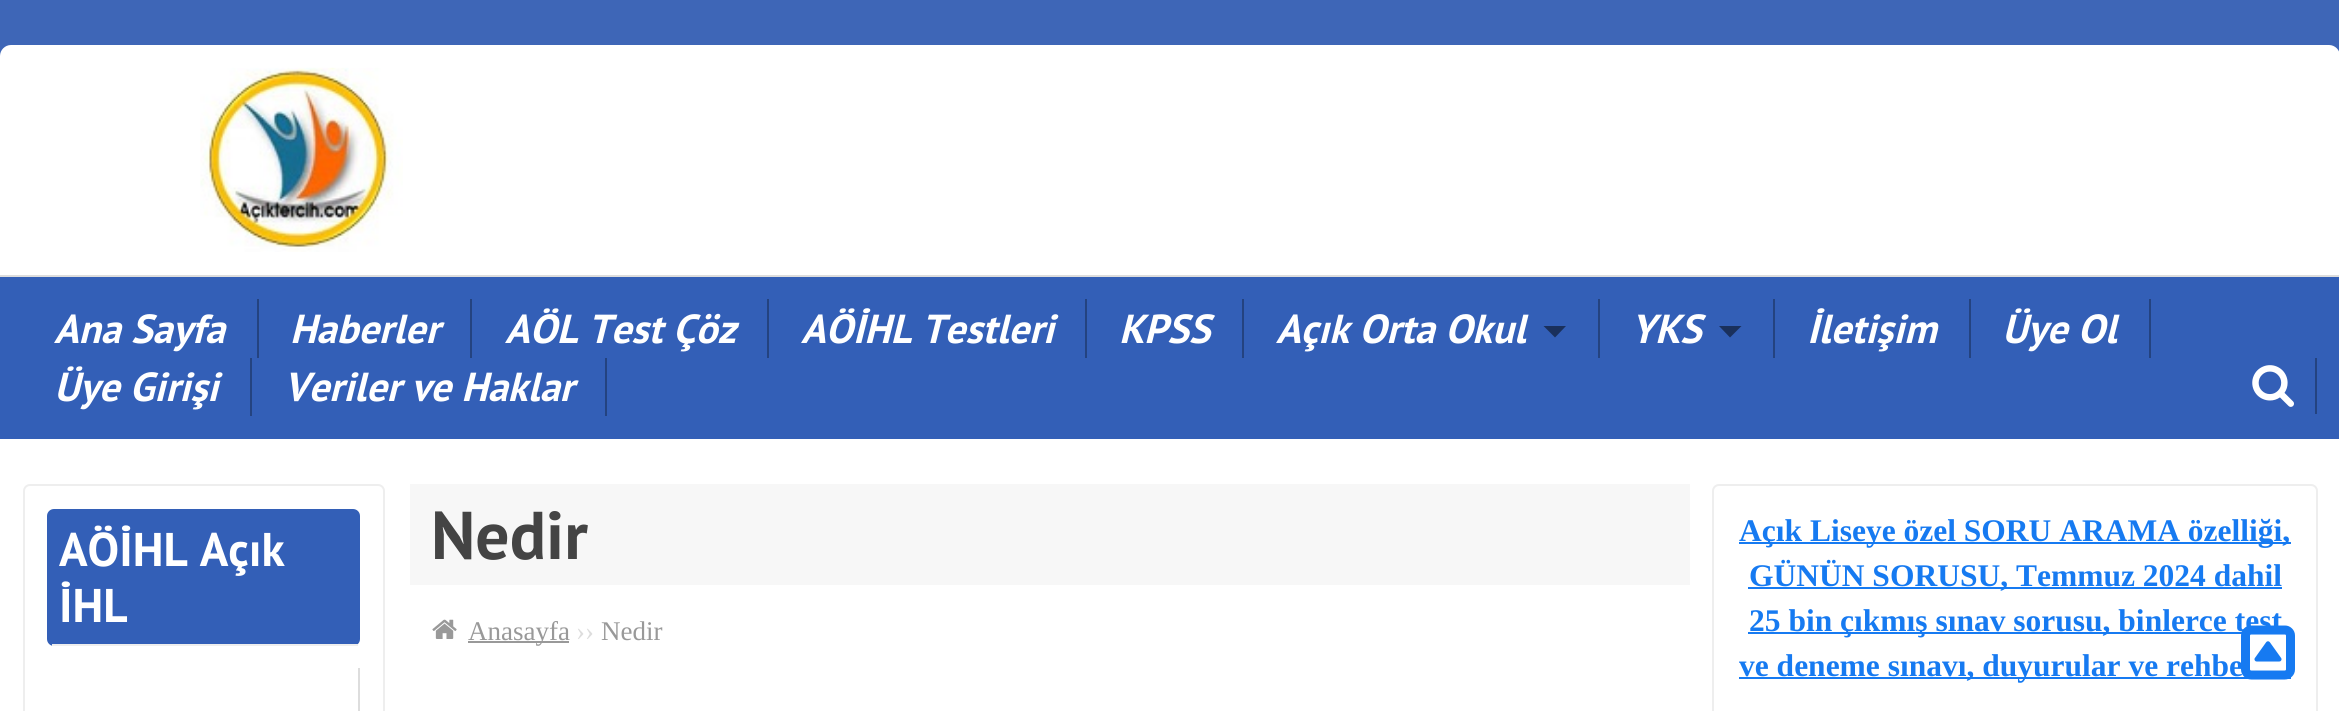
#include <cairo.h>
#include <math.h>
#include <stddef.h>


static void set_color(cairo_t *cr, unsigned color) {
    cairo_set_source_rgb(cr, (color >> 16) / 255.0, (color >> 8 & 255) / 255.0, (color & 255) / 255.0);
}

static void draw_text(cairo_t *cr, double x, double y, const char *s, const char *family, double size, int italic, int bold, unsigned color) {
    cairo_select_font_face(cr, family, italic ? CAIRO_FONT_SLANT_ITALIC : CAIRO_FONT_SLANT_NORMAL,
        bold ? CAIRO_FONT_WEIGHT_BOLD : CAIRO_FONT_WEIGHT_NORMAL);
    cairo_set_font_size(cr, size);
    set_color(cr, color);
    cairo_move_to(cr, x, y);
    cairo_show_text(cr, s);
}

static void fill_rect(cairo_t *cr, double x, double y, double w, double h, unsigned color) {
    set_color(cr, color);
    cairo_rectangle(cr, x, y, w, h);
    cairo_fill(cr);
}

static void rounded_rect(cairo_t *cr, double x, double y, double w, double h, double r) {
    cairo_new_sub_path(cr);
    cairo_arc(cr, x + w - r, y + h - r, r, 0, M_PI / 2);
    cairo_arc(cr, x + r, y + h - r, r, M_PI / 2, M_PI);
    cairo_arc(cr, x + r, y + r, r, M_PI, 1.5 * M_PI);
    cairo_arc(cr, x + w - r, y + r, r, 1.5 * M_PI, 2 * M_PI);
    cairo_close_path(cr);
}

static void draw_image(cairo_t *cr, const char *path, double x, double y, double w, double h) {
    cairo_surface_t *image = cairo_image_surface_create_from_png(path);
    cairo_save(cr);
    cairo_set_source_surface(cr, image, x, y);
    cairo_rectangle(cr, x, y, w, h);
    cairo_fill(cr);
    cairo_restore(cr);
    cairo_surface_destroy(image);
}

int main(void) {
    cairo_surface_t *surface = cairo_image_surface_create(CAIRO_FORMAT_RGB24, 2339, 711);
    cairo_t *cr = cairo_create(surface);
    cairo_font_options_t *options = cairo_font_options_create();
    cairo_font_options_set_hint_metrics(options, CAIRO_HINT_METRICS_OFF);
    cairo_font_options_set_hint_style(options, CAIRO_HINT_STYLE_NONE);
    cairo_set_font_options(cr, options);
    cairo_set_miter_limit(cr, 4);
    set_color(cr, 0x3E66B7);
    cairo_paint(cr);
    set_color(cr, 0xFFFFFF);
    cairo_new_path(cr);
    cairo_move_to(cr, 11, 45);
    cairo_line_to(cr, 2329, 45);
    cairo_curve_to(cr, 2335, 45, 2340, 50, 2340, 56);
    cairo_line_to(cr, 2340, 277);
    cairo_line_to(cr, 0, 277);
    cairo_line_to(cr, 0, 56);
    cairo_curve_to(cr, 0, 50, 5, 45, 11, 45);
    cairo_close_path(cr);
    cairo_fill(cr);
    fill_rect(cr, 0, 275, 2339, 2, 0xDDDDDD);
    draw_image(cr, "assets/img1.png", 200, 67, 203, 185);
    fill_rect(cr, 0, 277, 2339, 162, 0x335FB7);
    fill_rect(cr, 257, 299, 2, 59, 0x244380);
    draw_text(cr, 54, 343, "Ana Sayfa", "PT Sans", 40.5, 1, 1, 0xFFFFFF);
    fill_rect(cr, 470, 299, 2, 59, 0x244380);
    draw_text(cr, 290, 343, "Haberler", "PT Sans", 40.5, 1, 1, 0xFFFFFF);
    fill_rect(cr, 767, 299, 2, 59, 0x244380);
    draw_text(cr, 505, 343, "AÖL Test Çöz", "PT Sans", 40.5, 1, 1, 0xFFFFFF);
    fill_rect(cr, 1085, 299, 2, 59, 0x244380);
    draw_text(cr, 801, 343, "AÖİHL Testleri", "PT Sans", 40.5, 1, 1, 0xFFFFFF);
    fill_rect(cr, 1242, 299, 2, 59, 0x244380);
    draw_text(cr, 1119, 343, "KPSS", "PT Sans", 40.5, 1, 1, 0xFFFFFF);
    fill_rect(cr, 1598, 299, 2, 59, 0x244380);
    draw_text(cr, 1276, 343, "Açık Orta Okul", "PT Sans", 40.5, 1, 1, 0xFFFFFF);
    set_color(cr, 0x1A305C);
    cairo_new_path(cr);
    cairo_move_to(cr, 1543.5, 326);
    cairo_line_to(cr, 1566, 326);
    cairo_line_to(cr, 1555, 337.5);
    cairo_close_path(cr);
    cairo_fill(cr);
    fill_rect(cr, 1773, 299, 2, 59, 0x244380);
    draw_text(cr, 1631, 343, "YKS", "PT Sans", 40.5, 1, 1, 0xFFFFFF);
    set_color(cr, 0x1A305C);
    cairo_new_path(cr);
    cairo_move_to(cr, 1719, 326);
    cairo_line_to(cr, 1741.5, 326);
    cairo_line_to(cr, 1730, 337.5);
    cairo_close_path(cr);
    cairo_fill(cr);
    fill_rect(cr, 1969, 299, 2, 59, 0x244380);
    draw_text(cr, 1807, 343, "İletişim", "PT Sans", 40.5, 1, 1, 0xFFFFFF);
    fill_rect(cr, 2149, 299, 2, 59, 0x244380);
    draw_text(cr, 2002, 343, "Üye Ol", "PT Sans", 40.5, 1, 1, 0xFFFFFF);
    fill_rect(cr, 250, 358, 2, 58, 0x244380);
    draw_text(cr, 54, 401, "Üye Girişi", "PT Sans", 40.5, 1, 1, 0xFFFFFF);
    fill_rect(cr, 605, 358, 2, 58, 0x244380);
    draw_text(cr, 284, 401, "Veriler ve Haklar", "PT Sans", 40.5, 1, 1, 0xFFFFFF);
    fill_rect(cr, 2315, 358, 2, 56, 0x244380);
    draw_image(cr, "assets/img2.png", 2252, 365, 42, 42);
    fill_rect(cr, 0, 439, 2339, 272, 0xFFFFFF);
    rounded_rect(cr, 24, 485, 360, 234, 6);
    set_color(cr, 0xEEEEEE);
    cairo_stroke(cr);
    set_color(cr, 0x335FB7);
    rounded_rect(cr, 47, 509, 313, 137, 7);
    cairo_fill(cr);
    fill_rect(cr, 52, 644, 306, 2, 0xEEEEEE);
    draw_text(cr, 59, 566, "AÖİHL Açık", "PT Sans", 47.25, 0, 1, 0xFFFFFF);
    draw_text(cr, 59, 622, "İHL", "PT Sans", 47.25, 0, 1, 0xFFFFFF);
    fill_rect(cr, 358, 668, 2, 43, 0xDDDDDD);
    fill_rect(cr, 410, 484, 1280, 101, 0xF7F7F7);
    draw_text(cr, 431, 559, "Nedir", "PT Sans", 67.5, 0, 1, 0x444444);
    draw_image(cr, "assets/img3.png", 432, 619, 25, 20);
    fill_rect(cr, 468, 641, 101, 2, 0x999999);
    draw_text(cr, 468, 640, "Anasayfa", "Liberation Serif", 27, 0, 0, 0x999999);
    draw_text(cr, 576, 640, "››", "Liberation Serif", 27, 0, 0, 0xDDDDDD);
    draw_text(cr, 601, 640, "Nedir", "Liberation Serif", 27, 0, 0, 0x999999);
    rounded_rect(cr, 1713, 485, 604, 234, 6);
    set_color(cr, 0xEEEEEE);
    cairo_stroke(cr);
    fill_rect(cr, 1739, 542, 552, 2, 0x167AF1);
    draw_text(cr, 1739, 541, "Açık Liseye özel SORU ARAMA özelliği,", "Liberation Serif", 31.5, 0, 1, 0x167AF1);
    fill_rect(cr, 1748, 587, 534, 2, 0x167AF1);
    draw_text(cr, 1749, 586, "GÜNÜN SORUSU, Temmuz 2024 dahil", "Liberation Serif", 31.5, 0, 1, 0x167AF1);
    fill_rect(cr, 1748, 632, 494, 2, 0x167AF1);
    draw_text(cr, 1749, 631, "25 bin çıkmış sınav sorusu, binlerce test", "Liberation Serif", 31.5, 0, 1, 0x167AF1);
    fill_rect(cr, 1739, 677, 552, 2, 0x167AF1);
    draw_text(cr, 1739, 676, "ve deneme sınavı, duyurular ve rehbe", "Liberation Serif", 31.5, 0, 1, 0x167AF1);
    draw_image(cr, "assets/img4.png", 2241, 625, 54, 55);
    cairo_surface_write_to_png(surface, "output.png");
    cairo_font_options_destroy(options);
    cairo_destroy(cr);
    cairo_surface_destroy(surface);
    return 0;
}
